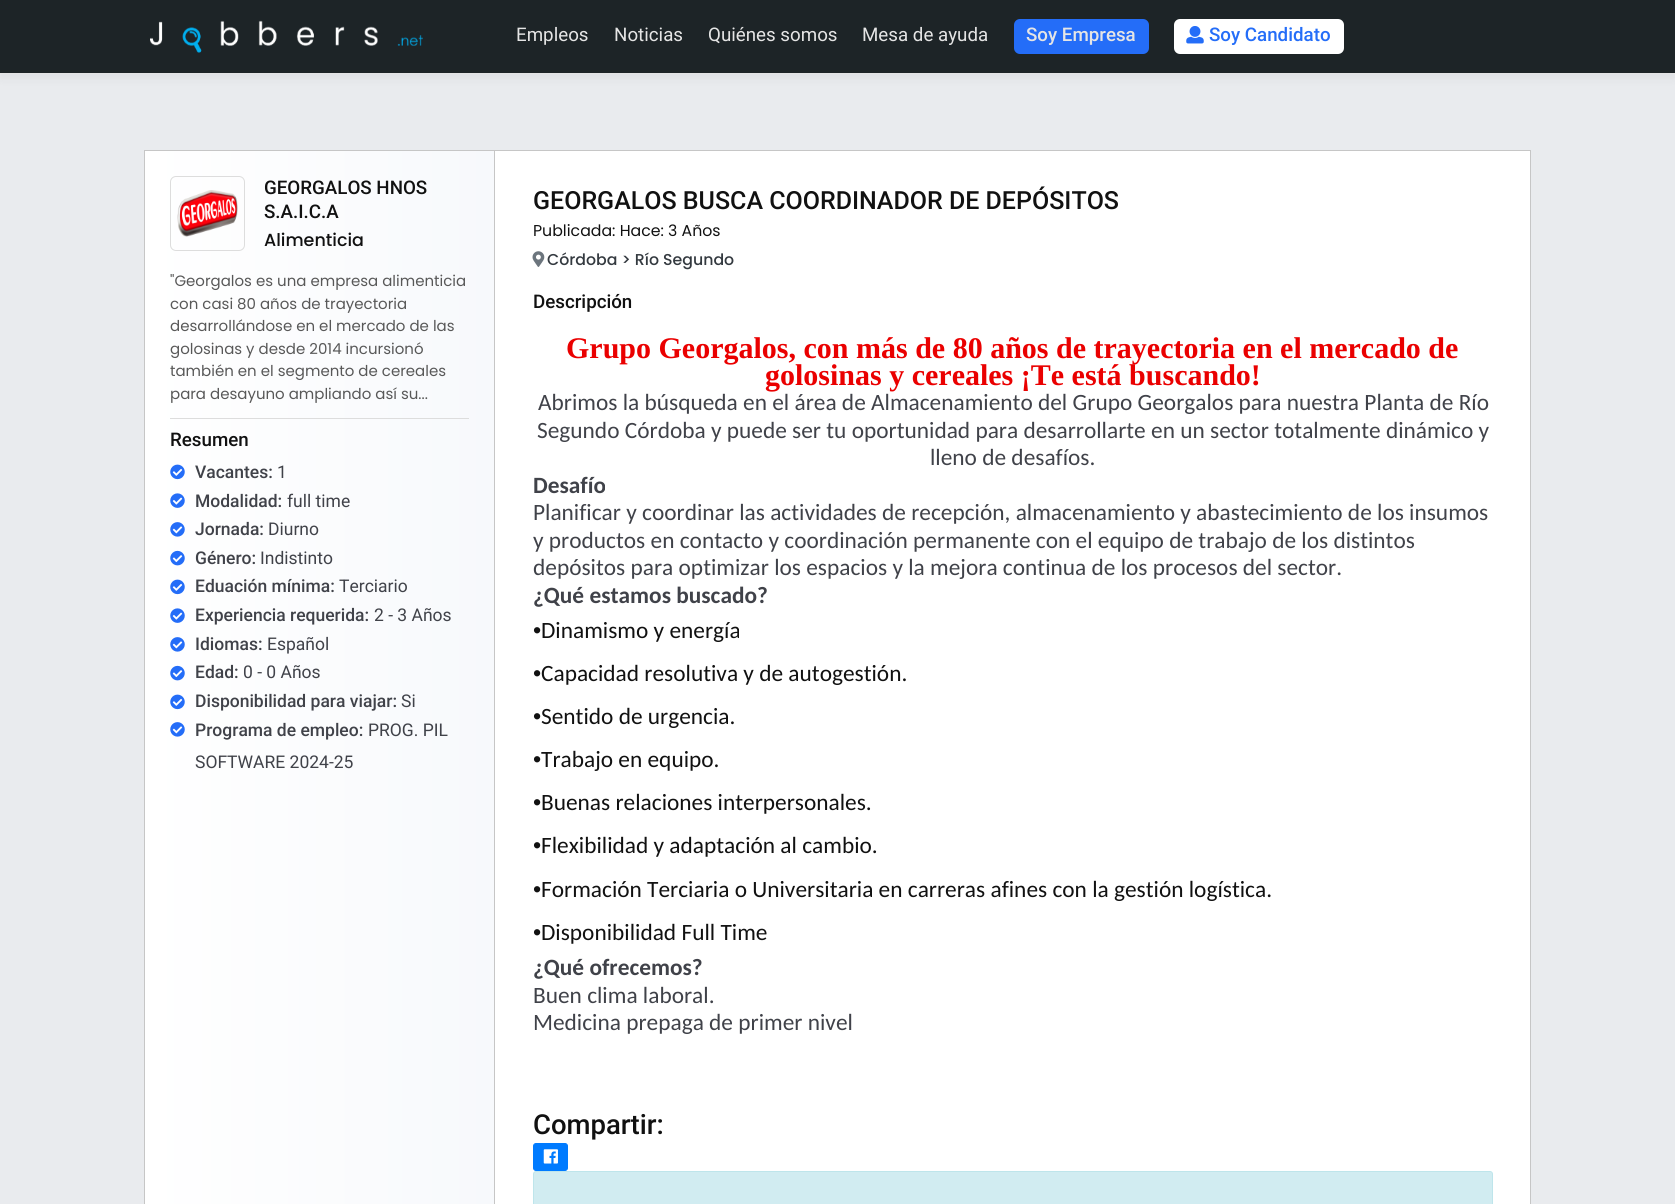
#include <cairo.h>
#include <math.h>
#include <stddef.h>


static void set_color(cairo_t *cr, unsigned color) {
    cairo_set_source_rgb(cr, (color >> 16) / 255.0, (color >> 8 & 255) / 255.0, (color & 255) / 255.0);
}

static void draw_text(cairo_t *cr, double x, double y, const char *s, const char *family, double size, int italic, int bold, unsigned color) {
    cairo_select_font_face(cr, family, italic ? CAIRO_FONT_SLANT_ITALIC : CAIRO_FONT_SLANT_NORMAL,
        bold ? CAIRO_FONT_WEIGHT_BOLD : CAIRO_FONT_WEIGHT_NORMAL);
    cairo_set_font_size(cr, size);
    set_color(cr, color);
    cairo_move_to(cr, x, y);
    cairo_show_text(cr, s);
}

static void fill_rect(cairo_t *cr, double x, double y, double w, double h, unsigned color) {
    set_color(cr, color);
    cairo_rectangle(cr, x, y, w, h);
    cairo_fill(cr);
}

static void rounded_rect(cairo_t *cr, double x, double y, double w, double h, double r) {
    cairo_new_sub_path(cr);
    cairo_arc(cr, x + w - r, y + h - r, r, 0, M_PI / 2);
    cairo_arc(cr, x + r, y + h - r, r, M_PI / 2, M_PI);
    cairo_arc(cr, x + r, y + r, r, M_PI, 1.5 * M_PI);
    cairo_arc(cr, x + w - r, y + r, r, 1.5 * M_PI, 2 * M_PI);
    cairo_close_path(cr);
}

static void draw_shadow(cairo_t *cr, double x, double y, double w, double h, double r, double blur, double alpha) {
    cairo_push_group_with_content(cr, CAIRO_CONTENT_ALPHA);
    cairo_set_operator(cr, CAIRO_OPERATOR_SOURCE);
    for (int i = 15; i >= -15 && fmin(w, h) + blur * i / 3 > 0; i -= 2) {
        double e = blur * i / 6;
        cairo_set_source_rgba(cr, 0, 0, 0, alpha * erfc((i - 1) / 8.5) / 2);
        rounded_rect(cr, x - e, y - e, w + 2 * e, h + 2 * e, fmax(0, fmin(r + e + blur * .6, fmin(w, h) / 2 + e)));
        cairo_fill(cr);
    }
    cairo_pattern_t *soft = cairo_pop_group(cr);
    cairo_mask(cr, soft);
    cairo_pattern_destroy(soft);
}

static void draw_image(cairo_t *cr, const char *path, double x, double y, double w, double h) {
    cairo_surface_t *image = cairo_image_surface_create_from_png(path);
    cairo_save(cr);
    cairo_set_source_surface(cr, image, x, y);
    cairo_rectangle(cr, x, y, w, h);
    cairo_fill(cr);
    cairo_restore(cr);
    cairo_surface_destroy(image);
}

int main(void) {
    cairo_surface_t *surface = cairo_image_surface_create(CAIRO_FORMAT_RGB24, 1675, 1204);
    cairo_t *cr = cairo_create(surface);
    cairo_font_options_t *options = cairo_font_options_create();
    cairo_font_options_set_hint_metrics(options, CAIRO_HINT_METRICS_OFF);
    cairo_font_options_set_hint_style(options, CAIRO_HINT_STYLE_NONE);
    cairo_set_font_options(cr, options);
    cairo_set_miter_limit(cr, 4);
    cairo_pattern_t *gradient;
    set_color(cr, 0xE9EBEE);
    cairo_paint(cr);
    set_color(cr, 0x000000);
    draw_shadow(cr, 0, 4, 1675, 74, 0, 5, 0.05);
    fill_rect(cr, 0, 0, 1675, 73, 0x1D2427);
    fill_rect(cr, 0, 73, 1675, 1, 0xE4E4E4);
    draw_image(cr, "assets/img1.png", 150, 20, 273, 33);
    draw_text(cr, 516, 41, "Empleos", "Roboto", 18.75, 0, 0, 0xE5E5E5);
    draw_text(cr, 614, 41, "Noticias", "Roboto", 18.75, 0, 0, 0xE5E5E5);
    draw_text(cr, 708, 41, "Quiénes somos", "Roboto", 18.75, 0, 0, 0xE5E5E5);
    draw_text(cr, 862, 41, "Mesa de ayuda", "Roboto", 18.75, 0, 0, 0xE5E5E5);
    set_color(cr, 0x246DF8);
    rounded_rect(cr, 1014, 19, 135, 35, 6);
    cairo_fill(cr);
    draw_text(cr, 1026, 41, "Soy Empresa", "Roboto Medium", 18.75, 0, 0, 0xE5E5E5);
    set_color(cr, 0xFFFFFF);
    rounded_rect(cr, 1174, 19, 170, 35, 6);
    cairo_fill(cr);
    draw_image(cr, "assets/img2.png", 1186, 26, 18, 18);
    draw_text(cr, 1209, 41, "Soy Candidato", "Roboto Medium", 18.75, 0, 0, 0x246DF8);
    cairo_rectangle(cr, 144.5, 150.5, 1386, 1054);
    set_color(cr, 0xC6C6C6);
    cairo_set_line_width(cr, 1);
    cairo_stroke(cr);
    gradient = cairo_pattern_create_linear(145, 751, 494, 751);
    cairo_pattern_add_color_stop_rgba(gradient, 0, 1, 1, 1, 1);
    cairo_pattern_add_color_stop_rgba(gradient, 1, 0.969, 0.976, 0.988, 1);
    cairo_set_source(cr, gradient);
    cairo_pattern_destroy(gradient);
    cairo_rectangle(cr, 145, 151, 349, 1053);
    cairo_fill(cr);
    fill_rect(cr, 494, 151, 1, 1053, 0xC6C6C6);
    rounded_rect(cr, 170.5, 176.5, 74, 74, 5.5);
    set_color(cr, 0xDDDDDD);
    cairo_stroke(cr);
    draw_image(cr, "assets/img3.png", 177, 190, 61, 47);
    draw_text(cr, 264, 194, "GEORGALOS HNOS", "Roboto Medium", 18.75, 0, 0, 0x111111);
    draw_text(cr, 264, 218, "S.A.I.C.A", "Roboto Medium", 18.75, 0, 0, 0x111111);
    draw_text(cr, 264, 246, "Alimenticia", "Poppins Medium", 17.5, 0, 0, 0x111111);
    draw_text(cr, 170, 286, "\"Georgalos es una empresa alimenticia", "Poppins", 15, 0, 0, 0x585858);
    draw_text(cr, 170, 309, "con casi 80 años de trayectoria", "Poppins", 15, 0, 0, 0x585858);
    draw_text(cr, 170, 331, "desarrollándose en el mercado de las", "Poppins", 15, 0, 0, 0x585858);
    draw_text(cr, 170, 354, "golosinas y desde 2014 incursionó", "Poppins", 15, 0, 0, 0x585858);
    draw_text(cr, 170, 376, "también en el segmento de cereales", "Poppins", 15, 0, 0, 0x585858);
    draw_text(cr, 170, 399, "para desayuno ampliando así su...", "Poppins", 15, 0, 0, 0x585858);
    fill_rect(cr, 170, 418, 299, 1, 0xDDDDDD);
    draw_text(cr, 170, 446, "Resumen", "Roboto Medium", 18.75, 0, 0, 0x111111);
    draw_image(cr, "assets/img4.png", 170, 464, 15, 16);
    draw_text(cr, 195, 478, "Vacantes:", "Roboto Medium", 17.5, 0, 0, 0x404249);
    draw_text(cr, 277, 478, "1", "Roboto", 17.5, 0, 0, 0x404249);
    draw_image(cr, "assets/img5.png", 170, 493, 15, 15);
    draw_text(cr, 195, 507, "Modalidad:", "Roboto Medium", 17.5, 0, 0, 0x404249);
    draw_text(cr, 287, 507, "full time", "Roboto", 17.5, 0, 0, 0x404249);
    draw_image(cr, "assets/img6.png", 170, 522, 15, 15);
    draw_text(cr, 195, 535, "Jornada:", "Roboto Medium", 17.5, 0, 0, 0x404249);
    draw_text(cr, 268, 535, "Diurno", "Roboto", 17.5, 0, 0, 0x404249);
    draw_image(cr, "assets/img7.png", 170, 550, 15, 16);
    draw_text(cr, 195, 564, "Género:", "Roboto Medium", 17.5, 0, 0, 0x404249);
    draw_text(cr, 260, 564, "Indistinto", "Roboto", 17.5, 0, 0, 0x404249);
    draw_image(cr, "assets/img4.png", 170, 579, 15, 16);
    draw_text(cr, 195, 592, "Eduación mínima:", "Roboto Medium", 17.5, 0, 0, 0x404249);
    draw_text(cr, 339, 592, "Terciario", "Roboto", 17.5, 0, 0, 0x404249);
    draw_image(cr, "assets/img5.png", 170, 608, 15, 15);
    draw_text(cr, 195, 621, "Experiencia requerida:", "Roboto Medium", 17.5, 0, 0, 0x404249);
    draw_text(cr, 374, 621, "2 - 3 Años", "Roboto", 17.5, 0, 0, 0x404249);
    draw_image(cr, "assets/img6.png", 170, 637, 15, 15);
    draw_text(cr, 195, 650, "Idiomas:", "Roboto Medium", 17.5, 0, 0, 0x404249);
    draw_text(cr, 267, 650, "Español", "Roboto", 17.5, 0, 0, 0x404249);
    draw_image(cr, "assets/img7.png", 170, 665, 15, 16);
    draw_text(cr, 195, 678, "Edad:", "Roboto Medium", 17.5, 0, 0, 0x404249);
    draw_text(cr, 243, 678, "0 - 0 Años", "Roboto", 17.5, 0, 0, 0x404249);
    draw_image(cr, "assets/img4.png", 170, 694, 15, 16);
    draw_text(cr, 195, 707, "Disponibilidad para viajar:", "Roboto Medium", 17.5, 0, 0, 0x404249);
    draw_text(cr, 401, 707, "Si", "Roboto", 17.5, 0, 0, 0x404249);
    draw_image(cr, "assets/img6.png", 170, 722, 15, 15);
    draw_text(cr, 195, 736, "Programa de empleo:", "Roboto Medium", 17.5, 0, 0, 0x404249);
    draw_text(cr, 368, 736, "PROG. PIL", "Roboto", 17.5, 0, 0, 0x404249);
    draw_text(cr, 195, 768, "SOFTWARE 2024-25", "Roboto", 17.5, 0, 0, 0x404249);
    fill_rect(cr, 495, 151, 1035, 1053, 0xFFFFFF);
    draw_text(cr, 533, 209, "GEORGALOS BUSCA COORDINADOR DE DEPÓSITOS", "Roboto Medium", 25, 0, 0, 0x111111);
    draw_text(cr, 533, 236, "Publicada: Hace: 3 Años", "Poppins", 15.75, 0, 0, 0x111111);
    draw_image(cr, "assets/img8.png", 532, 251, 13, 16);
    draw_text(cr, 547, 265, "Córdoba > Río Segundo", "Poppins Medium", 15.75, 0, 0, 0x343A40);
    draw_text(cr, 533, 308, "Descripción", "Roboto Medium", 18.75, 0, 0, 0x111111);
    draw_text(cr, 566, 358, "Grupo Georgalos, con más de 80 años de trayectoria en el mercado de", "Liberation Serif", 30, 0, 1, 0xEA0000);
    draw_text(cr, 765, 385, "golosinas y cereales ¡Te está buscando!", "Liberation Serif", 30, 0, 1, 0xEA0000);
    draw_text(cr, 538, 410, "Abrimos la búsqueda en el área de Almacenamiento del Grupo Georgalos para nuestra Planta de Río", "Carlito", 23.35, 0, 0, 0x404249);
    draw_text(cr, 537, 438, "Segundo Córdoba y puede ser tu oportunidad para desarrollarte en un sector totalmente dinámico y", "Carlito", 23.35, 0, 0, 0x404249);
    draw_text(cr, 930, 465, "lleno de desafíos.", "Carlito", 23.35, 0, 0, 0x404249);
    draw_text(cr, 533, 493, "Desafío", "Carlito", 23.35, 0, 1, 0x404249);
    draw_text(cr, 533, 520, "Planificar y coordinar las actividades de recepción, almacenamiento y abastecimiento de los insumos", "Carlito", 23.35, 0, 0, 0x404249);
    draw_text(cr, 533, 548, "y productos en contacto y coordinación permanente con el equipo de trabajo de los distintos", "Carlito", 23.35, 0, 0, 0x404249);
    draw_text(cr, 533, 575, "depósitos para optimizar los espacios y la mejora continua de los procesos del sector.", "Carlito", 23.35, 0, 0, 0x404249);
    draw_text(cr, 533, 603, "¿Qué estamos buscado?", "Carlito", 23.35, 0, 1, 0x404249);
    draw_text(cr, 533, 638, "•", "Liberation Sans", 23.35, 0, 0, 0x111111);
    draw_text(cr, 541, 638, "Dinamismo y energía", "Carlito", 23.35, 0, 0, 0x111111);
    draw_text(cr, 533, 681, "•", "Liberation Sans", 23.35, 0, 0, 0x111111);
    draw_text(cr, 541, 681, "Capacidad resolutiva y de autogestión.", "Carlito", 23.35, 0, 0, 0x111111);
    draw_text(cr, 533, 724, "•", "Liberation Sans", 23.35, 0, 0, 0x111111);
    draw_text(cr, 541, 724, "Sentido de urgencia.", "Carlito", 23.35, 0, 0, 0x111111);
    draw_text(cr, 533, 767, "•", "Liberation Sans", 23.35, 0, 0, 0x111111);
    draw_text(cr, 541, 767, "Trabajo en equipo.", "Carlito", 23.35, 0, 0, 0x111111);
    draw_text(cr, 533, 810, "•", "Liberation Sans", 23.35, 0, 0, 0x111111);
    draw_text(cr, 541, 810, "Buenas relaciones interpersonales.", "Carlito", 23.35, 0, 0, 0x111111);
    draw_text(cr, 533, 853, "•", "Liberation Sans", 23.35, 0, 0, 0x111111);
    draw_text(cr, 541, 853, "Flexibilidad y adaptación al cambio.", "Carlito", 23.35, 0, 0, 0x111111);
    draw_text(cr, 533, 897, "•", "Liberation Sans", 23.35, 0, 0, 0x111111);
    draw_text(cr, 541, 897, "Formación Terciaria o Universitaria en carreras afines con la gestión logística.", "Carlito", 23.35, 0, 0, 0x111111);
    draw_text(cr, 533, 940, "•", "Liberation Sans", 23.35, 0, 0, 0x111111);
    draw_text(cr, 541, 940, "Disponibilidad Full Time", "Carlito", 23.35, 0, 0, 0x111111);
    draw_text(cr, 533, 975, "¿Qué ofrecemos?", "Carlito", 23.35, 0, 1, 0x404249);
    draw_text(cr, 533, 1003, "Buen clima laboral.", "Carlito", 23.35, 0, 0, 0x404249);
    draw_text(cr, 533, 1030, "Medicina prepaga de primer nivel", "Carlito", 23.35, 0, 0, 0x404249);
    draw_text(cr, 533, 1134, "Compartir:", "Roboto Medium", 27.5, 0, 0, 0x111111);
    set_color(cr, 0x007BFF);
    rounded_rect(cr, 533.5, 1143.5, 34, 27, 2.5);
    cairo_fill_preserve(cr);
    cairo_stroke(cr);
    draw_image(cr, "assets/img9.png", 543, 1149, 15, 15);
    set_color(cr, 0xD1ECF1);
    rounded_rect(cr, 533.5, 1171.5, 959, 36, 2.5);
    cairo_fill_preserve(cr);
    set_color(cr, 0xBEE5EB);
    cairo_stroke(cr);
    cairo_surface_write_to_png(surface, "output.png");
    cairo_font_options_destroy(options);
    cairo_destroy(cr);
    cairo_surface_destroy(surface);
    return 0;
}
